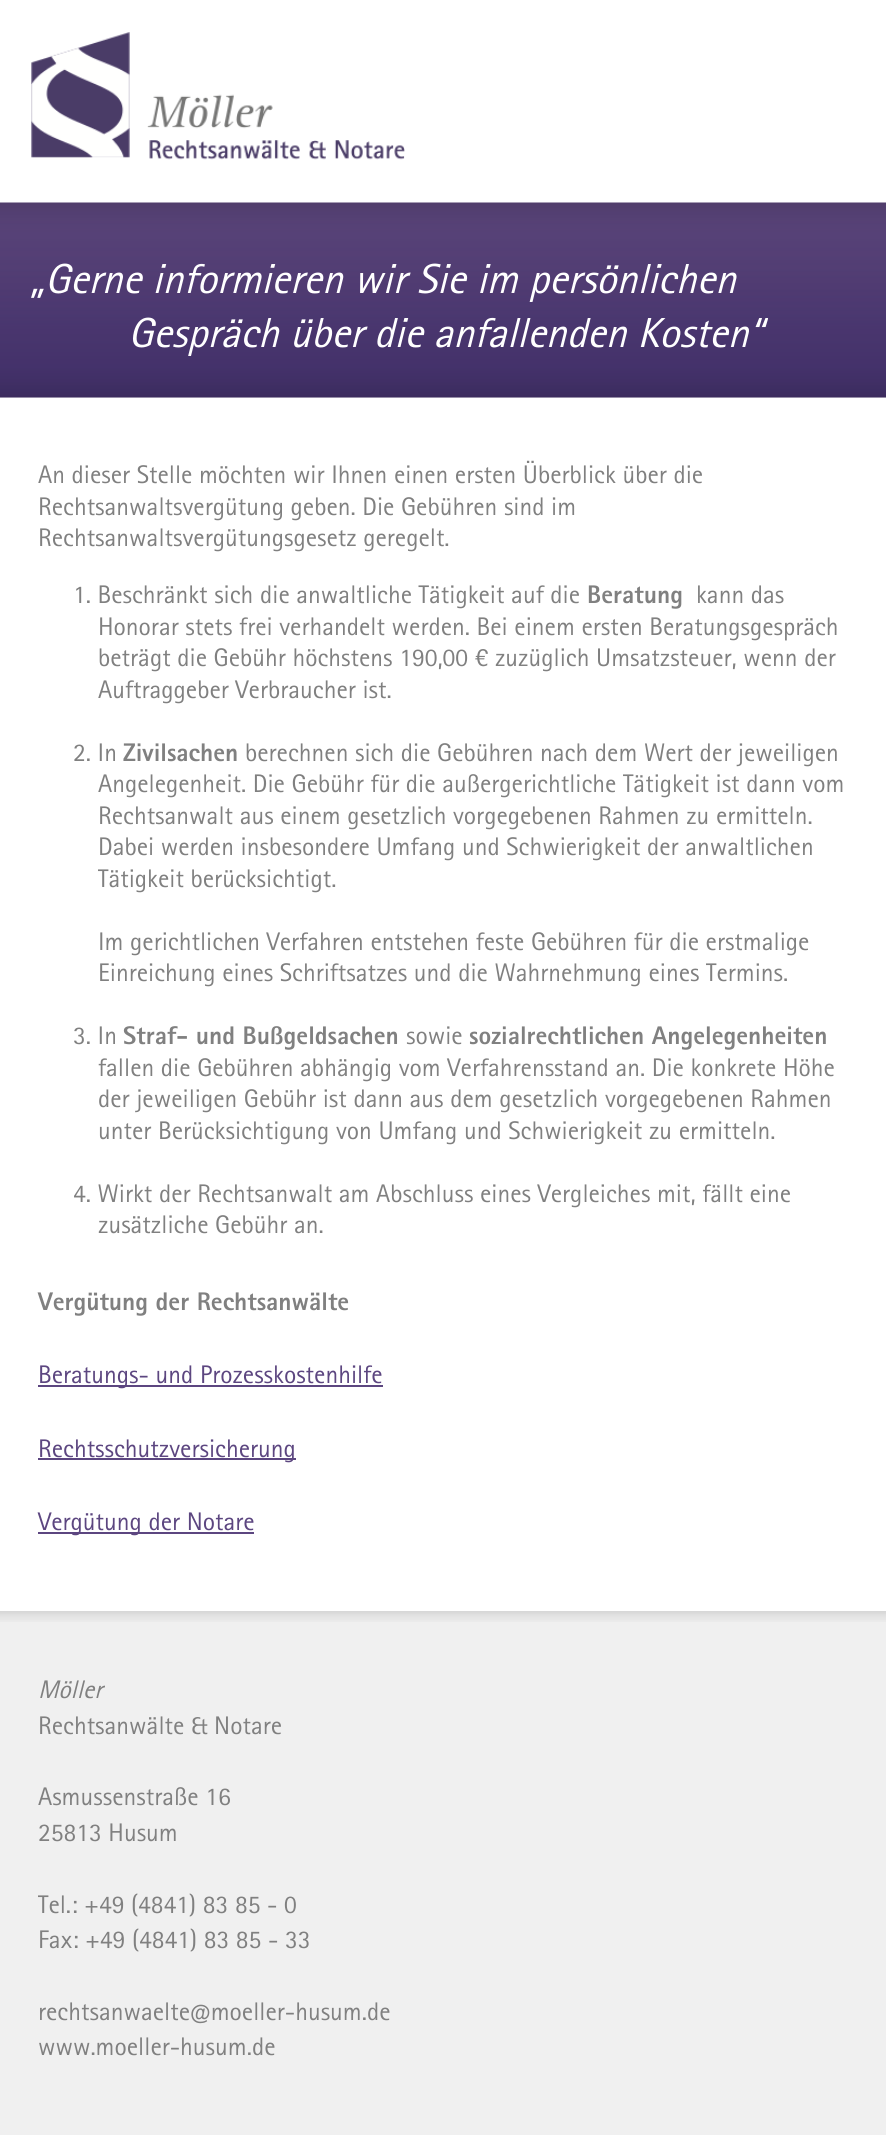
#include <cairo.h>
#include <math.h>
#include <stddef.h>


static void set_color(cairo_t *cr, unsigned color) {
    cairo_set_source_rgb(cr, (color >> 16) / 255.0, (color >> 8 & 255) / 255.0, (color & 255) / 255.0);
}

static void draw_text(cairo_t *cr, double x, double y, const char *s, const char *family, double size, int italic, int bold, unsigned color) {
    cairo_select_font_face(cr, family, italic ? CAIRO_FONT_SLANT_ITALIC : CAIRO_FONT_SLANT_NORMAL,
        bold ? CAIRO_FONT_WEIGHT_BOLD : CAIRO_FONT_WEIGHT_NORMAL);
    cairo_set_font_size(cr, size);
    set_color(cr, color);
    cairo_move_to(cr, x, y);
    cairo_show_text(cr, s);
}

static void fill_rect(cairo_t *cr, double x, double y, double w, double h, unsigned color) {
    set_color(cr, color);
    cairo_rectangle(cr, x, y, w, h);
    cairo_fill(cr);
}

static void draw_image(cairo_t *cr, const char *path, double x, double y, double w, double h) {
    cairo_surface_t *image = cairo_image_surface_create_from_png(path);
    cairo_save(cr);
    cairo_set_source_surface(cr, image, x, y);
    cairo_rectangle(cr, x, y, w, h);
    cairo_fill(cr);
    cairo_restore(cr);
    cairo_surface_destroy(image);
}

int main(void) {
    cairo_surface_t *surface = cairo_image_surface_create(CAIRO_FORMAT_RGB24, 886, 2135);
    cairo_t *cr = cairo_create(surface);
    cairo_font_options_t *options = cairo_font_options_create();
    cairo_font_options_set_hint_metrics(options, CAIRO_HINT_METRICS_OFF);
    cairo_font_options_set_hint_style(options, CAIRO_HINT_STYLE_NONE);
    cairo_set_font_options(cr, options);
    cairo_set_miter_limit(cr, 4);
    set_color(cr, 0xF0F0F0);
    cairo_paint(cr);
    fill_rect(cr, 0, 0, 886, 203, 0xFFFFFF);
    draw_image(cr, "assets/img1.png", 31, 32, 374, 128);
    draw_image(cr, "assets/img2.png", 0, 202, 886, 196);
    draw_text(cr, 30, 293, "„Gerne informieren wir Sie im persönlichen", "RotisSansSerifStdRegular", 42, 1, 0, 0xFFFFFF);
    draw_text(cr, 128, 347, "Gespräch über die anfallenden Kosten“", "RotisSansSerifStdRegular", 42, 1, 0, 0xFFFFFF);
    fill_rect(cr, 0, 398, 886, 1213, 0xFFFFFF);
    draw_text(cr, 38, 483, "An dieser Stelle möchten wir Ihnen einen ersten Überblick über die", "RotisSansSerifStdRegular", 25.5, 0, 0, 0x808080);
    draw_text(cr, 38, 515, "Rechtsanwaltsvergütung geben. Die Gebühren sind im", "RotisSansSerifStdRegular", 25.5, 0, 0, 0x808080);
    draw_text(cr, 38, 546, "Rechtsanwaltsvergütungsgesetz geregelt.", "RotisSansSerifStdRegular", 25.5, 0, 0, 0x808080);
    draw_text(cr, 73, 603, "1. Beschränkt sich die anwaltliche Tätigkeit auf die", "RotisSansSerifStdRegular", 25.5, 0, 0, 0x808080);
    draw_text(cr, 587, 603, "Beratung", "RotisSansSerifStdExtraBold", 25.5, 0, 0, 0x808080);
    draw_text(cr, 696, 603, "kann das", "RotisSansSerifStdRegular", 25.5, 0, 0, 0x808080);
    draw_text(cr, 98, 635, "Honorar stets frei verhandelt werden. Bei einem ersten Beratungsgespräch", "RotisSansSerifStdRegular", 25.5, 0, 0, 0x808080);
    draw_text(cr, 98, 666, "beträgt die Gebühr höchstens 190,00 € zuzüglich Umsatzsteuer, wenn der", "RotisSansSerifStdRegular", 25.5, 0, 0, 0x808080);
    draw_text(cr, 98, 698, "Auftraggeber Verbraucher ist.", "RotisSansSerifStdRegular", 25.5, 0, 0, 0x808080);
    draw_text(cr, 73, 761, "2. In", "RotisSansSerifStdRegular", 25.5, 0, 0, 0x808080);
    draw_text(cr, 123, 761, "Zivilsachen", "RotisSansSerifStdExtraBold", 25.5, 0, 0, 0x808080);
    draw_text(cr, 245, 761, "berechnen sich die Gebühren nach dem Wert der jeweiligen", "RotisSansSerifStdRegular", 25.5, 0, 0, 0x808080);
    draw_text(cr, 98, 792, "Angelegenheit. Die Gebühr für die außergerichtliche Tätigkeit ist dann vom", "RotisSansSerifStdRegular", 25.5, 0, 0, 0x808080);
    draw_text(cr, 98, 824, "Rechtsanwalt aus einem gesetzlich vorgegebenen Rahmen zu ermitteln.", "RotisSansSerifStdRegular", 25.5, 0, 0, 0x808080);
    draw_text(cr, 98, 855, "Dabei werden insbesondere Umfang und Schwierigkeit der anwaltlichen", "RotisSansSerifStdRegular", 25.5, 0, 0, 0x808080);
    draw_text(cr, 98, 887, "Tätigkeit berücksichtigt.", "RotisSansSerifStdRegular", 25.5, 0, 0, 0x808080);
    draw_text(cr, 98, 950, "Im gerichtlichen Verfahren entstehen feste Gebühren für die erstmalige", "RotisSansSerifStdRegular", 25.5, 0, 0, 0x808080);
    draw_text(cr, 98, 981, "Einreichung eines Schriftsatzes und die Wahrnehmung eines Termins.", "RotisSansSerifStdRegular", 25.5, 0, 0, 0x808080);
    draw_text(cr, 73, 1044, "3. In", "RotisSansSerifStdRegular", 25.5, 0, 0, 0x808080);
    draw_text(cr, 123, 1044, "Straf- und Bußgeldsachen", "RotisSansSerifStdExtraBold", 25.5, 0, 0, 0x808080);
    draw_text(cr, 406, 1044, "sowie", "RotisSansSerifStdRegular", 25.5, 0, 0, 0x808080);
    draw_text(cr, 469, 1044, "sozialrechtlichen Angelegenheiten", "RotisSansSerifStdExtraBold", 25.5, 0, 0, 0x808080);
    draw_text(cr, 98, 1076, "fallen die Gebühren abhängig vom Verfahrensstand an. Die konkrete Höhe", "RotisSansSerifStdRegular", 25.5, 0, 0, 0x808080);
    draw_text(cr, 98, 1107, "der jeweiligen Gebühr ist dann aus dem gesetzlich vorgegebenen Rahmen", "RotisSansSerifStdRegular", 25.5, 0, 0, 0x808080);
    draw_text(cr, 98, 1139, "unter Berücksichtigung von Umfang und Schwierigkeit zu ermitteln.", "RotisSansSerifStdRegular", 25.5, 0, 0, 0x808080);
    draw_text(cr, 73, 1202, "4. Wirkt der Rechtsanwalt am Abschluss eines Vergleiches mit, fällt eine", "RotisSansSerifStdRegular", 25.5, 0, 0, 0x808080);
    draw_text(cr, 98, 1233, "zusätzliche Gebühr an.", "RotisSansSerifStdRegular", 25.5, 0, 0, 0x808080);
    draw_text(cr, 38, 1310, "Vergütung der Rechtsanwälte", "RotisSansSerifStdExtraBold", 25.5, 0, 0, 0x808080);
    fill_rect(cr, 38, 1385, 345, 2, 0x5C4680);
    draw_text(cr, 38, 1383, "Beratungs- und Prozesskostenhilfe", "RotisSansSerifStdRegular", 25.5, 0, 0, 0x5C4680);
    fill_rect(cr, 38, 1458, 258, 2, 0x5C4680);
    draw_text(cr, 38, 1457, "Rechtsschutzversicherung", "RotisSansSerifStdRegular", 25.5, 0, 0, 0x5C4680);
    fill_rect(cr, 38, 1532, 216, 2, 0x5C4680);
    draw_text(cr, 38, 1530, "Vergütung der Notare", "RotisSansSerifStdRegular", 25.5, 0, 0, 0x5C4680);
    draw_image(cr, "assets/img3.png", 0, 1611, 886, 11);
    draw_text(cr, 38, 1698, "Möller", "RotisSansSerifStdRegular", 25.5, 1, 0, 0x808080);
    draw_text(cr, 38, 1734, "Rechtsanwälte & Notare", "RotisSansSerifStdRegular", 25.5, 0, 0, 0x808080);
    draw_text(cr, 38, 1805, "Asmussenstraße 16", "RotisSansSerifStdRegular", 25.5, 0, 0, 0x808080);
    draw_text(cr, 38, 1841, "25813 Husum", "RotisSansSerifStdRegular", 25.5, 0, 0, 0x808080);
    draw_text(cr, 38, 1913, "Tel.: +49 (4841) 83 85 - 0", "RotisSansSerifStdRegular", 25.5, 0, 0, 0x808080);
    draw_text(cr, 38, 1948, "Fax: +49 (4841) 83 85 - 33", "RotisSansSerifStdRegular", 25.5, 0, 0, 0x808080);
    draw_text(cr, 38, 2020, "rechtsanwaelte@moeller-husum.de", "RotisSansSerifStdRegular", 25.5, 0, 0, 0x808080);
    draw_text(cr, 38, 2055, "www.moeller-husum.de", "RotisSansSerifStdRegular", 25.5, 0, 0, 0x808080);
    cairo_surface_write_to_png(surface, "output.png");
    cairo_font_options_destroy(options);
    cairo_destroy(cr);
    cairo_surface_destroy(surface);
    return 0;
}
